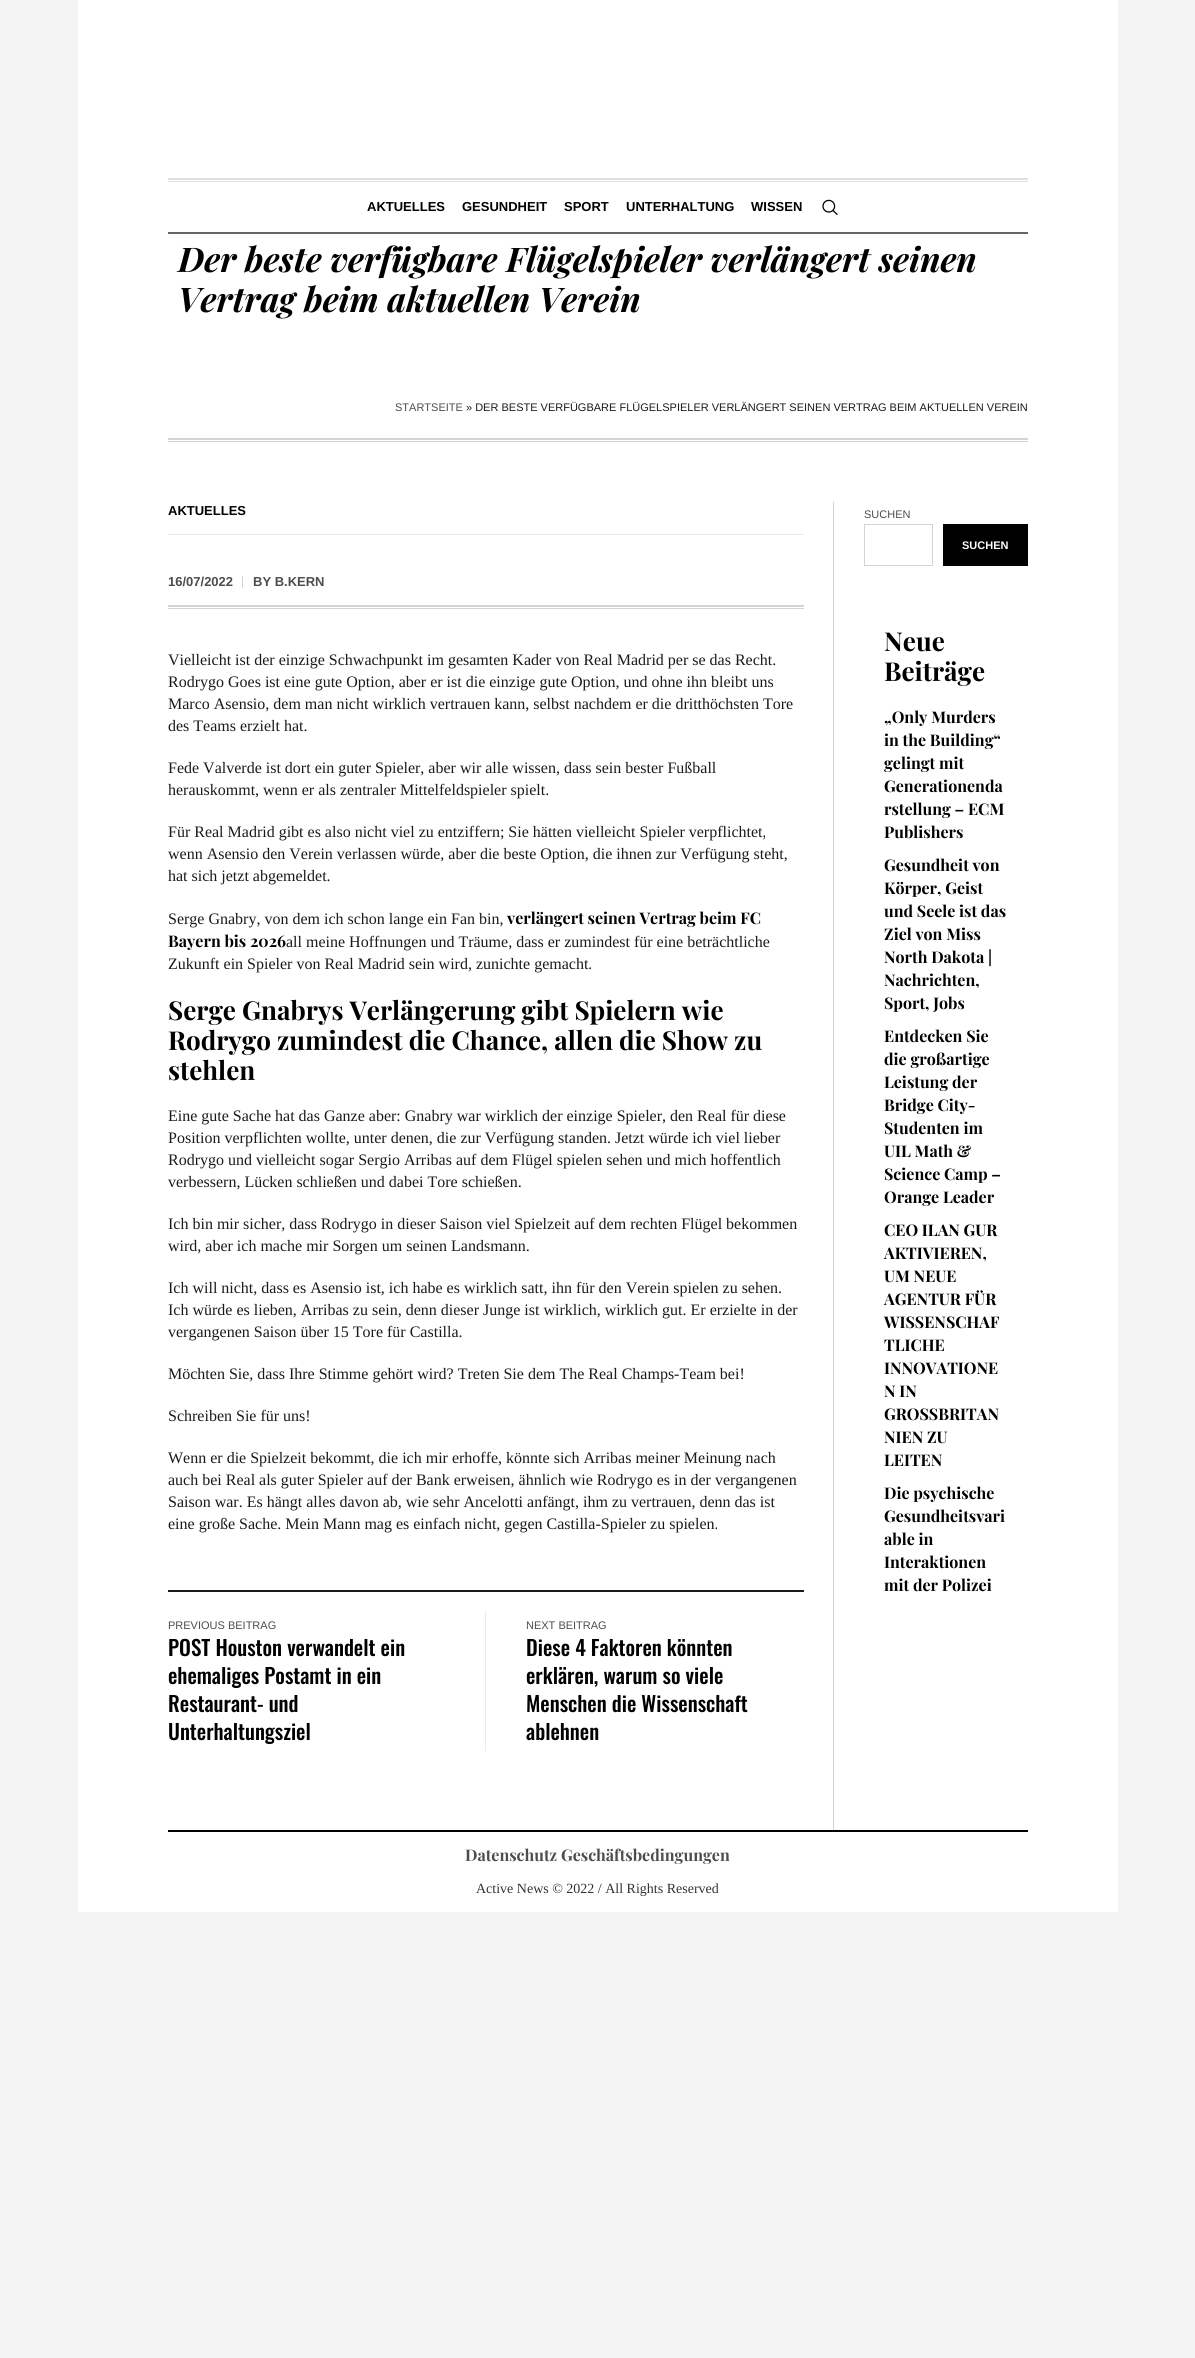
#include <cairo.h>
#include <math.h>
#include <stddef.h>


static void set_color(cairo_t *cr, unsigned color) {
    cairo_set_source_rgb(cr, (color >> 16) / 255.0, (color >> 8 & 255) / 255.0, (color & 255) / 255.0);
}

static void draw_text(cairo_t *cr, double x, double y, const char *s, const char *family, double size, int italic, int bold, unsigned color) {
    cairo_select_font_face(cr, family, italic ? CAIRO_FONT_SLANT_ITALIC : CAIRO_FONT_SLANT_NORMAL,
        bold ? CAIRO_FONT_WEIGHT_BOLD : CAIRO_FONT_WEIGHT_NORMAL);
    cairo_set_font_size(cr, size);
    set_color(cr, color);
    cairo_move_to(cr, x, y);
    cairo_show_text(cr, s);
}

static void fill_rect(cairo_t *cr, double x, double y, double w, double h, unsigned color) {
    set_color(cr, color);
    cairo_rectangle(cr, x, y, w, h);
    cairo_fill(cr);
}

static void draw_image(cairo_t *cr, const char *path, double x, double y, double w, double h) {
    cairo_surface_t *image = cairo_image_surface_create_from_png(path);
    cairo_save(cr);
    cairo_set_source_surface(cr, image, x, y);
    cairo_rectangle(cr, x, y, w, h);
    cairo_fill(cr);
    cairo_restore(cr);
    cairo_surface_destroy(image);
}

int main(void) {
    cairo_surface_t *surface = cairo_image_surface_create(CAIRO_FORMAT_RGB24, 1195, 2358);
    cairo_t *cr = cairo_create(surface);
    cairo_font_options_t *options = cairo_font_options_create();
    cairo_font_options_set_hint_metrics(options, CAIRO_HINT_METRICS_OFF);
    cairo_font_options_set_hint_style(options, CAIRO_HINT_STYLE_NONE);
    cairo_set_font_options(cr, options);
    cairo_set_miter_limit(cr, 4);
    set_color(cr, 0xF4F4F4);
    cairo_paint(cr);
    fill_rect(cr, 78, 0, 1040, 1912, 0xFFFFFF);
    fill_rect(cr, 168, 181, 860, 1, 0xDFDFDF);
    fill_rect(cr, 168, 178, 860, 2, 0xDFDFDF);
    fill_rect(cr, 168, 232, 860, 2, 0x666666);
    draw_text(cr, 367, 211, "AKTUELLES", "Liberation Sans", 13, 0, 1, 0x000000);
    draw_text(cr, 462, 211, "GESUNDHEIT", "Liberation Sans", 13, 0, 1, 0x000000);
    draw_text(cr, 564, 211, "SPORT", "Liberation Sans", 13, 0, 1, 0x000000);
    draw_text(cr, 626, 211, "UNTERHALTUNG", "Liberation Sans", 13, 0, 1, 0x000000);
    draw_text(cr, 751, 211, "WISSEN", "Liberation Sans", 13, 0, 1, 0x000000);
    draw_image(cr, "assets/img1.png", 822, 199, 16, 16);
    fill_rect(cr, 168, 438, 860, 2, 0xD4D4D4);
    fill_rect(cr, 168, 441, 860, 1, 0xD4D4D4);
    draw_text(cr, 178, 272, "Der beste verfügbare Flügelspieler verlängert seinen", "Playfair Display", 34, 1, 1, 0x000000);
    draw_text(cr, 178, 312, "Vertrag beim aktuellen Verein", "Playfair Display", 34, 1, 1, 0x000000);
    draw_text(cr, 395, 411, "STARTSEITE", "Liberation Sans", 11, 0, 0, 0x4D4D4D);
    draw_text(cr, 466, 411, "» DER BESTE VERFÜGBARE FLÜGELSPIELER VERLÄNGERT SEINEN VERTRAG BEIM AKTUELLEN VEREIN", "Liberation Sans", 11, 0, 0, 0x1A1A1A);
    fill_rect(cr, 168, 534, 636, 1, 0xEAEAEA);
    draw_text(cr, 168, 515, "AKTUELLES", "Liberation Sans", 13, 0, 1, 0x000000);
    fill_rect(cr, 168, 605, 636, 2, 0xD4D4D4);
    fill_rect(cr, 168, 608, 636, 1, 0xD4D4D4);
    draw_text(cr, 168, 586, "16/07/2022", "Liberation Sans", 13, 0, 1, 0x4D4D4D);
    fill_rect(cr, 242, 576, 1, 12, 0xD4D4D4);
    draw_text(cr, 253, 586, "BY B.KERN", "Liberation Sans", 13, 0, 1, 0x4D4D4D);
    draw_text(cr, 168, 665, "Vielleicht ist der einzige Schwachpunkt im gesamten Kader von Real Madrid per se das Recht.", "Liberation Serif", 16, 0, 0, 0x1A1A1A);
    draw_text(cr, 168, 687, "Rodrygo Goes ist eine gute Option, aber er ist die einzige gute Option, und ohne ihn bleibt uns", "Liberation Serif", 16, 0, 0, 0x1A1A1A);
    draw_text(cr, 168, 709, "Marco Asensio, dem man nicht wirklich vertrauen kann, selbst nachdem er die dritthöchsten Tore", "Liberation Serif", 16, 0, 0, 0x1A1A1A);
    draw_text(cr, 168, 731, "des Teams erzielt hat.", "Liberation Serif", 16, 0, 0, 0x1A1A1A);
    draw_text(cr, 168, 773, "Fede Valverde ist dort ein guter Spieler, aber wir alle wissen, dass sein bester Fußball", "Liberation Serif", 16, 0, 0, 0x1A1A1A);
    draw_text(cr, 168, 795, "herauskommt, wenn er als zentraler Mittelfeldspieler spielt.", "Liberation Serif", 16, 0, 0, 0x1A1A1A);
    draw_text(cr, 168, 837, "Für Real Madrid gibt es also nicht viel zu entziffern; Sie hätten vielleicht Spieler verpflichtet,", "Liberation Serif", 16, 0, 0, 0x1A1A1A);
    draw_text(cr, 168, 859, "wenn Asensio den Verein verlassen würde, aber die beste Option, die ihnen zur Verfügung steht,", "Liberation Serif", 16, 0, 0, 0x1A1A1A);
    draw_text(cr, 168, 881, "hat sich jetzt abgemeldet.", "Liberation Serif", 16, 0, 0, 0x1A1A1A);
    draw_text(cr, 168, 924, "Serge Gnabry, von dem ich schon lange ein Fan bin,", "Liberation Serif", 16, 0, 0, 0x1A1A1A);
    draw_text(cr, 507, 924, "verlängert seinen Vertrag beim FC", "Playfair Display", 16, 0, 1, 0x000000);
    draw_text(cr, 168, 947, "Bayern bis 2026", "Playfair Display", 16, 0, 1, 0x000000);
    draw_text(cr, 286, 947, "all meine Hoffnungen und Träume, dass er zumindest für eine beträchtliche", "Liberation Serif", 16, 0, 0, 0x1A1A1A);
    draw_text(cr, 168, 969, "Zukunft ein Spieler von Real Madrid sein wird, zunichte gemacht.", "Liberation Serif", 16, 0, 0, 0x1A1A1A);
    draw_text(cr, 168, 1020, "Serge Gnabrys Verlängerung gibt Spielern wie", "Playfair Display", 26, 0, 1, 0x000000);
    draw_text(cr, 168, 1050, "Rodrygo zumindest die Chance, allen die Show zu", "Playfair Display", 26, 0, 1, 0x000000);
    draw_text(cr, 168, 1080, "stehlen", "Playfair Display", 26, 0, 1, 0x000000);
    draw_text(cr, 168, 1121, "Eine gute Sache hat das Ganze aber: Gnabry war wirklich der einzige Spieler, den Real für diese", "Liberation Serif", 16, 0, 0, 0x1A1A1A);
    draw_text(cr, 168, 1143, "Position verpflichten wollte, unter denen, die zur Verfügung standen. Jetzt würde ich viel lieber", "Liberation Serif", 16, 0, 0, 0x1A1A1A);
    draw_text(cr, 168, 1165, "Rodrygo und vielleicht sogar Sergio Arribas auf dem Flügel spielen sehen und mich hoffentlich", "Liberation Serif", 16, 0, 0, 0x1A1A1A);
    draw_text(cr, 168, 1187, "verbessern, Lücken schließen und dabei Tore schießen.", "Liberation Serif", 16, 0, 0, 0x1A1A1A);
    draw_text(cr, 168, 1229, "Ich bin mir sicher, dass Rodrygo in dieser Saison viel Spielzeit auf dem rechten Flügel bekommen", "Liberation Serif", 16, 0, 0, 0x1A1A1A);
    draw_text(cr, 168, 1251, "wird, aber ich mache mir Sorgen um seinen Landsmann.", "Liberation Serif", 16, 0, 0, 0x1A1A1A);
    draw_text(cr, 168, 1293, "Ich will nicht, dass es Asensio ist, ich habe es wirklich satt, ihn für den Verein spielen zu sehen.", "Liberation Serif", 16, 0, 0, 0x1A1A1A);
    draw_text(cr, 168, 1315, "Ich würde es lieben, Arribas zu sein, denn dieser Junge ist wirklich, wirklich gut. Er erzielte in der", "Liberation Serif", 16, 0, 0, 0x1A1A1A);
    draw_text(cr, 168, 1337, "vergangenen Saison über 15 Tore für Castilla.", "Liberation Serif", 16, 0, 0, 0x1A1A1A);
    draw_text(cr, 168, 1379, "Möchten Sie, dass Ihre Stimme gehört wird? Treten Sie dem The Real Champs-Team bei!", "Liberation Serif", 16, 0, 0, 0x1A1A1A);
    draw_text(cr, 168, 1421, "Schreiben Sie für uns!", "Liberation Serif", 16, 0, 0, 0x1A1A1A);
    draw_text(cr, 168, 1463, "Wenn er die Spielzeit bekommt, die ich mir erhoffe, könnte sich Arribas meiner Meinung nach", "Liberation Serif", 16, 0, 0, 0x1A1A1A);
    draw_text(cr, 168, 1485, "auch bei Real als guter Spieler auf der Bank erweisen, ähnlich wie Rodrygo es in der vergangenen", "Liberation Serif", 16, 0, 0, 0x1A1A1A);
    draw_text(cr, 168, 1507, "Saison war. Es hängt alles davon ab, wie sehr Ancelotti anfängt, ihm zu vertrauen, denn das ist", "Liberation Serif", 16, 0, 0, 0x1A1A1A);
    draw_text(cr, 168, 1529, "eine große Sache. Mein Mann mag es einfach nicht, gegen Castilla-Spieler zu spielen.", "Liberation Serif", 16, 0, 0, 0x1A1A1A);
    fill_rect(cr, 168, 1590, 636, 2, 0x1A1A1A);
    draw_text(cr, 168, 1629, "PREVIOUS BEITRAG", "Liberation Sans", 11, 0, 0, 0x4D4D4D);
    draw_text(cr, 168, 1656, "POST Houston verwandelt ein", "Oswald Medium", 21, 0, 0, 0x000000);
    draw_text(cr, 168, 1684, "ehemaliges Postamt in ein", "Oswald Medium", 21, 0, 0, 0x000000);
    draw_text(cr, 168, 1712, "Restaurant- und", "Oswald Medium", 21, 0, 0, 0x000000);
    draw_text(cr, 168, 1740, "Unterhaltungsziel", "Oswald Medium", 21, 0, 0, 0x000000);
    fill_rect(cr, 485, 1611, 1, 140, 0xEAEAEA);
    draw_text(cr, 526, 1629, "NEXT BEITRAG", "Liberation Sans", 11, 0, 0, 0x4D4D4D);
    draw_text(cr, 526, 1656, "Diese 4 Faktoren könnten", "Oswald Medium", 21, 0, 0, 0x000000);
    draw_text(cr, 526, 1684, "erklären, warum so viele", "Oswald Medium", 21, 0, 0, 0x000000);
    draw_text(cr, 526, 1712, "Menschen die Wissenschaft", "Oswald Medium", 21, 0, 0, 0x000000);
    draw_text(cr, 526, 1740, "ablehnen", "Oswald Medium", 21, 0, 0, 0x000000);
    fill_rect(cr, 833, 502, 1, 1328, 0xD4D4D4);
    draw_text(cr, 864, 518, "SUCHEN", "Liberation Sans", 11, 0, 0, 0x4D4D4D);
    cairo_rectangle(cr, 864.5, 524.5, 68, 41);
    set_color(cr, 0xD4D4D4);
    cairo_set_line_width(cr, 1);
    cairo_stroke(cr);
    fill_rect(cr, 943, 524, 85, 42, 0x000000);
    draw_text(cr, 962, 549, "SUCHEN", "Liberation Sans", 11, 0, 1, 0xFFFFFF);
    draw_text(cr, 884, 651, "Neue", "Playfair Display", 26, 0, 1, 0x000000);
    draw_text(cr, 884, 681, "Beiträge", "Playfair Display", 26, 0, 1, 0x000000);
    draw_text(cr, 884, 723, "„Only Murders", "Playfair Display", 16, 0, 1, 0x000000);
    draw_text(cr, 884, 746, "in the Building“", "Playfair Display", 16, 0, 1, 0x000000);
    draw_text(cr, 884, 769, "gelingt mit", "Playfair Display", 16, 0, 1, 0x000000);
    draw_text(cr, 884, 792, "Generationenda", "Playfair Display", 16, 0, 1, 0x000000);
    draw_text(cr, 884, 815, "rstellung – ECM", "Playfair Display", 16, 0, 1, 0x000000);
    draw_text(cr, 884, 838, "Publishers", "Playfair Display", 16, 0, 1, 0x000000);
    draw_text(cr, 884, 871, "Gesundheit von", "Playfair Display", 16, 0, 1, 0x000000);
    draw_text(cr, 884, 894, "Körper, Geist", "Playfair Display", 16, 0, 1, 0x000000);
    draw_text(cr, 884, 917, "und Seele ist das", "Playfair Display", 16, 0, 1, 0x000000);
    draw_text(cr, 884, 940, "Ziel von Miss", "Playfair Display", 16, 0, 1, 0x000000);
    draw_text(cr, 884, 963, "North Dakota |", "Playfair Display", 16, 0, 1, 0x000000);
    draw_text(cr, 884, 986, "Nachrichten,", "Playfair Display", 16, 0, 1, 0x000000);
    draw_text(cr, 884, 1009, "Sport, Jobs", "Playfair Display", 16, 0, 1, 0x000000);
    draw_text(cr, 884, 1042, "Entdecken Sie", "Playfair Display", 16, 0, 1, 0x000000);
    draw_text(cr, 884, 1065, "die großartige", "Playfair Display", 16, 0, 1, 0x000000);
    draw_text(cr, 884, 1088, "Leistung der", "Playfair Display", 16, 0, 1, 0x000000);
    draw_text(cr, 884, 1111, "Bridge City-", "Playfair Display", 16, 0, 1, 0x000000);
    draw_text(cr, 884, 1134, "Studenten im", "Playfair Display", 16, 0, 1, 0x000000);
    draw_text(cr, 884, 1157, "UIL Math &", "Playfair Display", 16, 0, 1, 0x000000);
    draw_text(cr, 884, 1180, "Science Camp –", "Playfair Display", 16, 0, 1, 0x000000);
    draw_text(cr, 884, 1203, "Orange Leader", "Playfair Display", 16, 0, 1, 0x000000);
    draw_text(cr, 884, 1236, "CEO ILAN GUR", "Playfair Display", 16, 0, 1, 0x000000);
    draw_text(cr, 884, 1259, "AKTIVIEREN,", "Playfair Display", 16, 0, 1, 0x000000);
    draw_text(cr, 884, 1282, "UM NEUE", "Playfair Display", 16, 0, 1, 0x000000);
    draw_text(cr, 884, 1305, "AGENTUR FÜR", "Playfair Display", 16, 0, 1, 0x000000);
    draw_text(cr, 884, 1328, "WISSENSCHAF", "Playfair Display", 16, 0, 1, 0x000000);
    draw_text(cr, 884, 1351, "TLICHE", "Playfair Display", 16, 0, 1, 0x000000);
    draw_text(cr, 884, 1374, "INNOVATIONE", "Playfair Display", 16, 0, 1, 0x000000);
    draw_text(cr, 884, 1397, "N IN", "Playfair Display", 16, 0, 1, 0x000000);
    draw_text(cr, 884, 1420, "GROSSBRITAN", "Playfair Display", 16, 0, 1, 0x000000);
    draw_text(cr, 884, 1443, "NIEN ZU", "Playfair Display", 16, 0, 1, 0x000000);
    draw_text(cr, 884, 1466, "LEITEN", "Playfair Display", 16, 0, 1, 0x000000);
    draw_text(cr, 884, 1499, "Die psychische", "Playfair Display", 16, 0, 1, 0x000000);
    draw_text(cr, 884, 1522, "Gesundheitsvari", "Playfair Display", 16, 0, 1, 0x000000);
    draw_text(cr, 884, 1545, "able in", "Playfair Display", 16, 0, 1, 0x000000);
    draw_text(cr, 884, 1568, "Interaktionen", "Playfair Display", 16, 0, 1, 0x000000);
    draw_text(cr, 884, 1591, "mit der Polizei", "Playfair Display", 16, 0, 1, 0x000000);
    fill_rect(cr, 168, 1830, 860, 2, 0x000000);
    draw_text(cr, 465, 1861, "Datenschutz Geschäftsbedingungen", "Playfair Display", 16, 0, 1, 0x4D4D4D);
    draw_text(cr, 476, 1893, "Active News © 2022 / All Rights Reserved", "Liberation Serif", 14, 0, 0, 0x333333);
    cairo_surface_write_to_png(surface, "output.png");
    cairo_font_options_destroy(options);
    cairo_destroy(cr);
    cairo_surface_destroy(surface);
    return 0;
}
